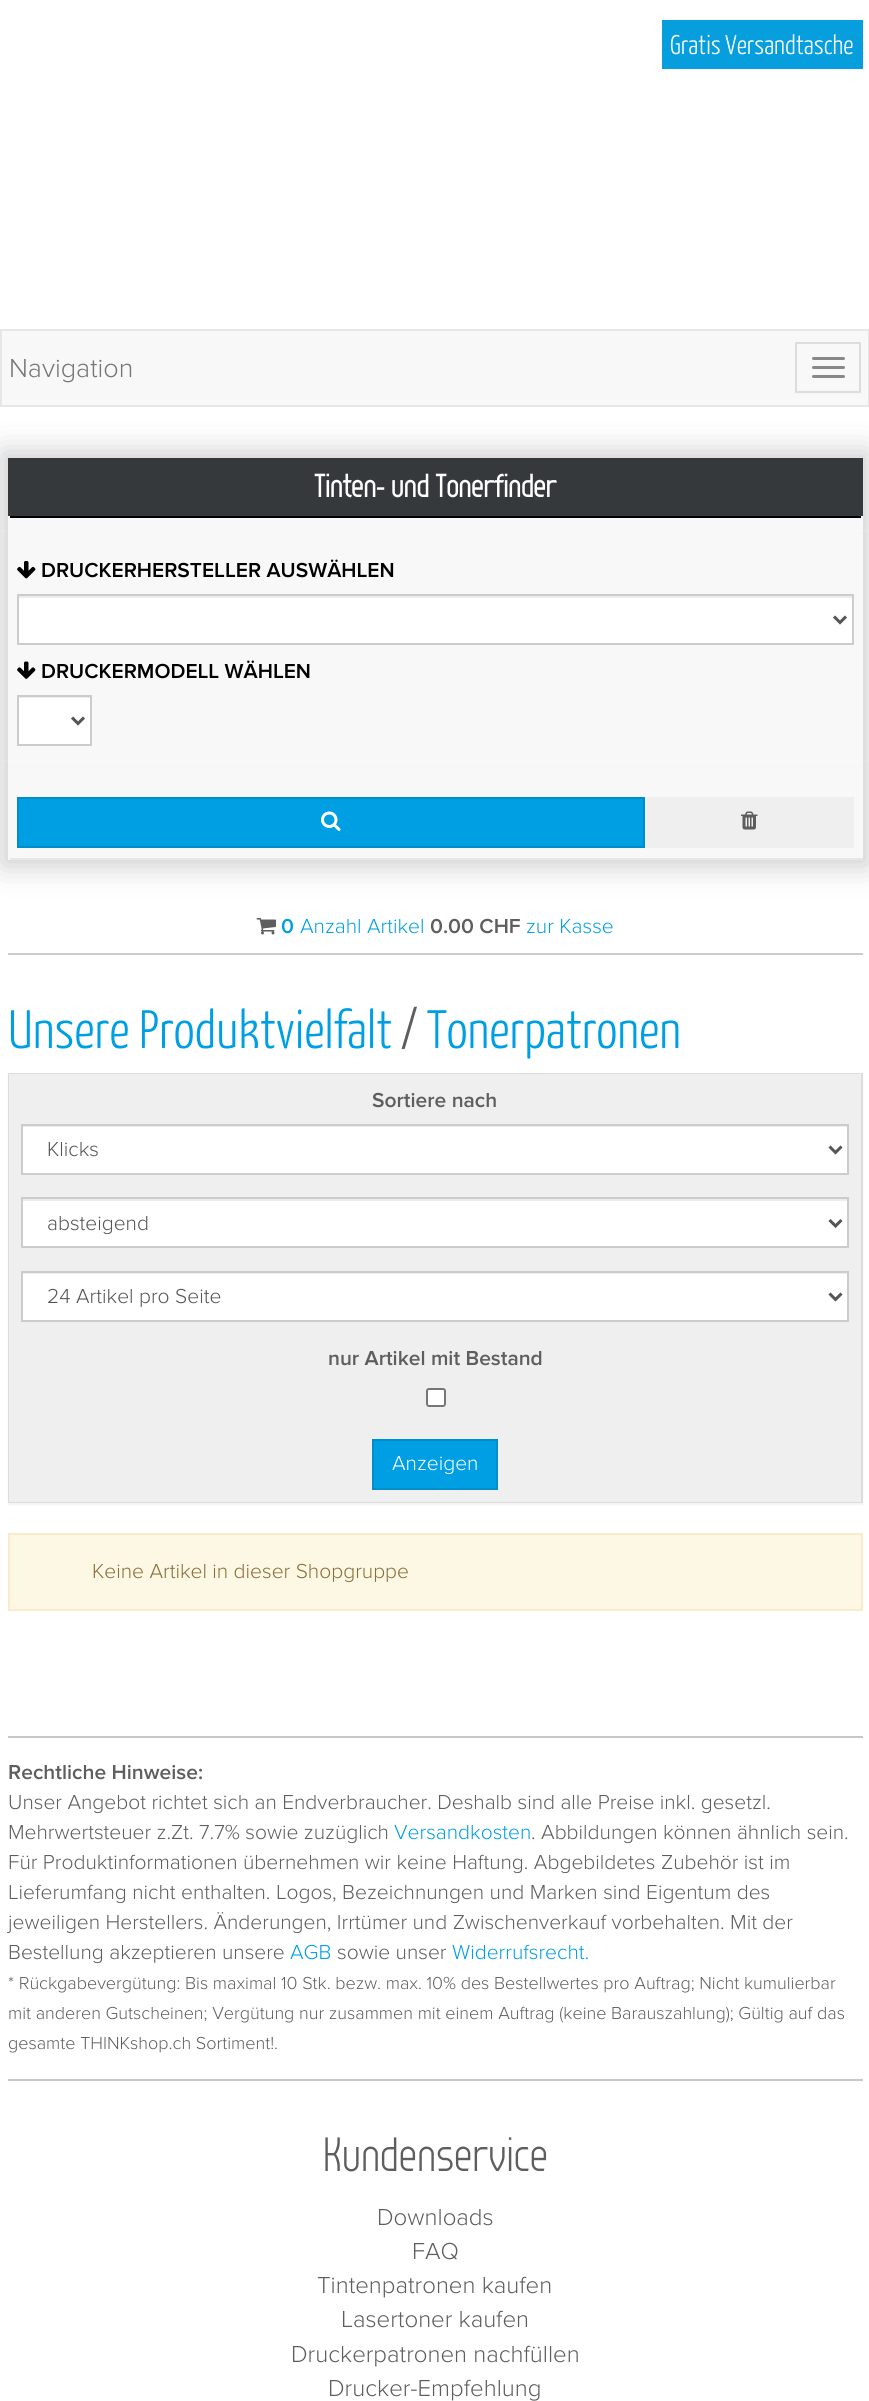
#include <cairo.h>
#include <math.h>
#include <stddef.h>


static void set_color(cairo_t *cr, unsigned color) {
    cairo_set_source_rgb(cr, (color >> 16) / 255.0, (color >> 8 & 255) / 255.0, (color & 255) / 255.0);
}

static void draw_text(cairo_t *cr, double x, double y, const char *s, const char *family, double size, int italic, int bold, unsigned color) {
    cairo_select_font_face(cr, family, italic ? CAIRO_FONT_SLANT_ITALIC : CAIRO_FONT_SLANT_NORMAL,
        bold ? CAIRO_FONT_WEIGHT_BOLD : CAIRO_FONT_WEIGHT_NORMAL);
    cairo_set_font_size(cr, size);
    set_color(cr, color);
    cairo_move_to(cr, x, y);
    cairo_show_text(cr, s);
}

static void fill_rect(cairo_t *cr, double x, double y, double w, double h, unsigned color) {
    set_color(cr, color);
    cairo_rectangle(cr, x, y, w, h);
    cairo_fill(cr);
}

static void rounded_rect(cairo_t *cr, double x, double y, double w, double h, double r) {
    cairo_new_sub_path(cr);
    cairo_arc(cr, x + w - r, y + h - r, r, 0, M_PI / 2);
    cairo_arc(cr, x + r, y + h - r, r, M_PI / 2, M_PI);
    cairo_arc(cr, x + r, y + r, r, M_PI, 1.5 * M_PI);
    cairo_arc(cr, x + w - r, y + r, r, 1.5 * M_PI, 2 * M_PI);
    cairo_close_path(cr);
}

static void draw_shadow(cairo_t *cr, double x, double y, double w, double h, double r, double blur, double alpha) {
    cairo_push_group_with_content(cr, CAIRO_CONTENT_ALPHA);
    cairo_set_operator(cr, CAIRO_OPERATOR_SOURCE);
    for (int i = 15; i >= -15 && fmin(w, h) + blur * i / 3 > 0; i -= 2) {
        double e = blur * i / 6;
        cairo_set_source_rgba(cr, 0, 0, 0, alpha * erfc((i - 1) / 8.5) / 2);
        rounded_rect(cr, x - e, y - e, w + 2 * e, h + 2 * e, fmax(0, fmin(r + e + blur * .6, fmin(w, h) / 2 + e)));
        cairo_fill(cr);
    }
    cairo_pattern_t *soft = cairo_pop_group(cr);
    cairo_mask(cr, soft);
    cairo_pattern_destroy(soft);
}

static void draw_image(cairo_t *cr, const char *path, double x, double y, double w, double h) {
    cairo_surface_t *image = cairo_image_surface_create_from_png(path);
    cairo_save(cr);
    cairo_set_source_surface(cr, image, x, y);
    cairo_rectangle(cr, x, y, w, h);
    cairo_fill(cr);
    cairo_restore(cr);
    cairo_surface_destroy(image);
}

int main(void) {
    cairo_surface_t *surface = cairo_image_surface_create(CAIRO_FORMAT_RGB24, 869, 2401);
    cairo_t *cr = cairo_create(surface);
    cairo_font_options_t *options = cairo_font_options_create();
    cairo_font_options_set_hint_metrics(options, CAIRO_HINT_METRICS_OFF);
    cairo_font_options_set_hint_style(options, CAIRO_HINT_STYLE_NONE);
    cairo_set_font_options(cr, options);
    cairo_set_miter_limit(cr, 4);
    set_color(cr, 0xFFFFFF);
    cairo_paint(cr);
    fill_rect(cr, 662, 20, 201, 49, 0x079EDE);
    draw_text(cr, 670, 54, "Gratis Versandtasche", "Yanone Kaffeesatz Light", 27, 0, 0, 0xFFFFFF);
    set_color(cr, 0x000000);
    draw_shadow(cr, 2, 452, 867, 414, 0, 15, 0.2);
    set_color(cr, 0xF8F8F8);
    cairo_rectangle(cr, 1, 330, 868, 76);
    cairo_fill_preserve(cr);
    set_color(cr, 0xE7E7E7);
    cairo_stroke(cr);
    draw_text(cr, 9, 377, "Navigation", "Proxima Nova Light", 27, 0, 0, 0x777777);
    cairo_rectangle(cr, 796, 343, 64, 49);
    set_color(cr, 0xDDDDDD);
    cairo_stroke(cr);
    set_color(cr, 0x888888);
    rounded_rect(cr, 812, 357, 33, 3, 1.5);
    cairo_fill(cr);
    rounded_rect(cr, 812, 366, 33, 3, 1.5);
    cairo_fill(cr);
    rounded_rect(cr, 812, 375, 33, 3, 1.5);
    cairo_fill(cr);
    fill_rect(cr, 8, 458, 855, 58, 0x36393B);
    draw_text(cr, 314, 497, "Tinten- und Tonerfinder", "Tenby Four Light", 32, 0, 1, 0xFFFFFF);
    fill_rect(cr, 10, 518, 851, 340, 0xF8F8F8);
    fill_rect(cr, 8, 516, 855, 2, 0x000000);
    fill_rect(cr, 861, 516, 2, 344, 0xF8F8F8);
    fill_rect(cr, 8, 858, 855, 2, 0xE7E7E7);
    fill_rect(cr, 8, 516, 2, 344, 0xF8F8F8);
    cairo_set_source_rgba(cr, 1, 1, 1, 0.1);
    cairo_new_path(cr);
    cairo_move_to(cr, 2, 760);
    cairo_line_to(cr, 2, 762);
    cairo_line_to(cr, 869, 762);
    cairo_line_to(cr, 869, 531);
    cairo_line_to(cr, 868, 531);
    cairo_line_to(cr, 868, 760);
    cairo_close_path(cr);
    cairo_fill(cr);
    cairo_rectangle(cr, 2, 530, 867, 2);
    cairo_fill(cr);
    draw_image(cr, "assets/img1.png", 17, 561, 19, 18);
    draw_text(cr, 41, 577, "DRUCKERHERSTELLER AUSWÄHLEN", "Proxima Nova SemiBold", 21, 0, 0, 0x000000);
    fill_rect(cr, 19, 598, 833, 45, 0xFFFFFF);
    fill_rect(cr, 18, 596, 834, 2, 0xECECEC);
    cairo_rectangle(cr, 18, 595, 835, 49);
    set_color(cr, 0xCCCCCC);
    cairo_stroke(cr);
    cairo_new_path(cr);
    cairo_move_to(cr, 834, 616.5);
    cairo_line_to(cr, 840, 622.5);
    cairo_line_to(cr, 846, 616.5);
    set_color(cr, 0x555555);
    cairo_set_line_width(cr, 3);
    cairo_stroke(cr);
    draw_image(cr, "assets/img2.png", 17, 661, 19, 18);
    draw_text(cr, 41, 678, "DRUCKERMODELL WÄHLEN", "Proxima Nova SemiBold", 21, 0, 0, 0x000000);
    fill_rect(cr, 19, 698, 71, 46, 0xFFFFFF);
    fill_rect(cr, 18, 697, 72, 1, 0xECECEC);
    cairo_rectangle(cr, 18, 696, 73, 49);
    set_color(cr, 0xCCCCCC);
    cairo_set_line_width(cr, 2);
    cairo_stroke(cr);
    cairo_new_path(cr);
    cairo_move_to(cr, 72, 717.5);
    cairo_line_to(cr, 78, 723.5);
    cairo_line_to(cr, 84, 717.5);
    set_color(cr, 0x555555);
    cairo_set_line_width(cr, 3);
    cairo_stroke(cr);
    set_color(cr, 0x009FE4);
    cairo_rectangle(cr, 18, 798, 626, 49);
    cairo_fill_preserve(cr);
    set_color(cr, 0x008DCB);
    cairo_set_line_width(cr, 2);
    cairo_stroke(cr);
    draw_image(cr, "assets/img3.png", 321, 811, 20, 20);
    fill_rect(cr, 645, 797, 209, 51, 0xEFEFEF);
    draw_image(cr, "assets/img4.png", 741, 811, 17, 19);
    fill_rect(cr, 8, 953, 855, 2, 0xCCCCCC);
    draw_image(cr, "assets/img5.png", 256, 918, 20, 17);
    draw_text(cr, 281, 933, "0", "Proxima Nova SemiBold", 21, 0, 0, 0x009FE4);
    draw_text(cr, 300, 933, "Anzahl Artikel", "Proxima Nova Light", 21, 0, 0, 0x009FE4);
    draw_text(cr, 430, 933, "0.00 CHF", "Proxima Nova SemiBold", 21, 0, 0, 0x5E5E5E);
    draw_text(cr, 526, 933, "zur Kasse", "Proxima Nova Light", 21, 0, 0, 0x009FE4);
    draw_text(cr, 8, 1048, "Unsere Produktvielfalt", "Yanone Kaffeesatz Light", 54, 0, 0, 0x009FE4);
    draw_text(cr, 401, 1048, "/", "Yanone Kaffeesatz Light", 54, 0, 0, 0x5E5E5E);
    draw_text(cr, 427, 1048, "Tonerpatronen", "Yanone Kaffeesatz Light", 54, 0, 0, 0x009FE4);
    set_color(cr, 0x000000);
    draw_shadow(cr, 8, 1074, 855, 431, 0, 1, 0.05);
    cairo_rectangle(cr, 9, 1074, 853, 428);
    set_color(cr, 0xDDDDDD);
    cairo_stroke(cr);
    fill_rect(cr, 9, 1074, 852, 428, 0xEFEFEF);
    draw_text(cr, 372, 1107, "Sortiere nach", "Proxima Nova SemiBold", 21, 0, 0, 0x5E5E5E);
    fill_rect(cr, 23, 1127, 824, 46, 0xFFFFFF);
    fill_rect(cr, 23, 1126, 825, 1, 0xECECEC);
    cairo_rectangle(cr, 22, 1125, 826, 49);
    set_color(cr, 0xCCCCCC);
    cairo_stroke(cr);
    cairo_new_path(cr);
    cairo_move_to(cr, 829.5, 1146.5);
    cairo_line_to(cr, 835.5, 1152.5);
    cairo_line_to(cr, 841.5, 1146.5);
    set_color(cr, 0x555555);
    cairo_set_line_width(cr, 3);
    cairo_stroke(cr);
    draw_text(cr, 47, 1156, "Klicks", "Proxima Nova Light", 21, 0, 0, 0x555555);
    fill_rect(cr, 23, 1201, 824, 45, 0xFFFFFF);
    fill_rect(cr, 23, 1199, 825, 2, 0xECECEC);
    cairo_rectangle(cr, 22, 1198, 826, 49);
    set_color(cr, 0xCCCCCC);
    cairo_set_line_width(cr, 2);
    cairo_stroke(cr);
    cairo_new_path(cr);
    cairo_move_to(cr, 829.5, 1220);
    cairo_line_to(cr, 835.5, 1226);
    cairo_line_to(cr, 841.5, 1220);
    set_color(cr, 0x555555);
    cairo_set_line_width(cr, 3);
    cairo_stroke(cr);
    draw_text(cr, 47, 1230, "absteigend", "Proxima Nova Light", 21, 0, 0, 0x555555);
    fill_rect(cr, 23, 1274, 824, 46, 0xFFFFFF);
    fill_rect(cr, 23, 1273, 825, 1, 0xECECEC);
    cairo_rectangle(cr, 22, 1272, 826, 49);
    set_color(cr, 0xCCCCCC);
    cairo_set_line_width(cr, 2);
    cairo_stroke(cr);
    cairo_new_path(cr);
    cairo_move_to(cr, 829.5, 1293.5);
    cairo_line_to(cr, 835.5, 1299.5);
    cairo_line_to(cr, 841.5, 1293.5);
    set_color(cr, 0x555555);
    cairo_set_line_width(cr, 3);
    cairo_stroke(cr);
    draw_text(cr, 47, 1303, "24 Artikel pro Seite", "Proxima Nova Light", 21, 0, 0, 0x555555);
    draw_text(cr, 328, 1365, "nur Artikel mit Bestand", "Proxima Nova SemiBold", 21, 0, 0, 0x5E5E5E);
    set_color(cr, 0xFFFFFF);
    rounded_rect(cr, 427, 1389, 18, 17, 2);
    cairo_fill_preserve(cr);
    set_color(cr, 0x767676);
    cairo_set_line_width(cr, 2);
    cairo_stroke(cr);
    set_color(cr, 0x009FE4);
    cairo_rectangle(cr, 373, 1440, 124, 49);
    cairo_fill_preserve(cr);
    set_color(cr, 0x008DCB);
    cairo_stroke(cr);
    draw_text(cr, 392, 1470, "Anzeigen", "Proxima Nova Light", 21, 0, 0, 0xFFFFFF);
    set_color(cr, 0xFCF8E3);
    cairo_rectangle(cr, 9, 1534, 853, 76);
    cairo_fill_preserve(cr);
    set_color(cr, 0xFAEBCC);
    cairo_stroke(cr);
    draw_text(cr, 92, 1578, "Keine Artikel in dieser Shopgruppe", "Proxima Nova Light", 21, 0, 0, 0x8A6D3B);
    fill_rect(cr, 8, 1736, 855, 2, 0xC8C8C8);
    fill_rect(cr, 8, 2079, 855, 2, 0xC8C8C8);
    draw_text(cr, 8, 1779, "Rechtliche Hinweise:", "Proxima Nova SemiBold", 21, 0, 0, 0x5E5E5E);
    draw_text(cr, 8, 1809, "Unser Angebot richtet sich an Endverbraucher. Deshalb sind alle Preise inkl. gesetzl.", "Proxima Nova Light", 21, 0, 0, 0x5E5E5E);
    draw_text(cr, 8, 1839, "Mehrwertsteuer z.Zt. 7.7% sowie zuzüglich", "Proxima Nova Light", 21, 0, 0, 0x5E5E5E);
    draw_text(cr, 394, 1839, "Versandkosten", "Proxima Nova Light", 21, 0, 0, 0x009FE4);
    draw_text(cr, 531, 1839, ". Abbildungen können ähnlich sein.", "Proxima Nova Light", 21, 0, 0, 0x5E5E5E);
    draw_text(cr, 8, 1869, "Für Produktinformationen übernehmen wir keine Haftung. Abgebildetes Zubehör ist im", "Proxima Nova Light", 21, 0, 0, 0x5E5E5E);
    draw_text(cr, 8, 1899, "Lieferumfang nicht enthalten. Logos, Bezeichnungen und Marken sind Eigentum des", "Proxima Nova Light", 21, 0, 0, 0x5E5E5E);
    draw_text(cr, 8, 1929, "jeweiligen Herstellers. Änderungen, Irrtümer und Zwischenverkauf vorbehalten. Mit der", "Proxima Nova Light", 21, 0, 0, 0x5E5E5E);
    draw_text(cr, 8, 1959, "Bestellung akzeptieren unsere", "Proxima Nova Light", 21, 0, 0, 0x5E5E5E);
    draw_text(cr, 290, 1959, "AGB", "Proxima Nova Light", 21, 0, 0, 0x009FE4);
    draw_text(cr, 337, 1959, "sowie unser", "Proxima Nova Light", 21, 0, 0, 0x5E5E5E);
    draw_text(cr, 452, 1959, "Widerrufsrecht.", "Proxima Nova Light", 21, 0, 0, 0x009FE4);
    draw_text(cr, 8, 1989, "* Rückgabevergütung: Bis maximal 10 Stk. bezw. max. 10% des Bestellwertes pro Auftrag; Nicht kumulierbar", "Proxima Nova Light", 18, 0, 0, 0x5E5E5E);
    draw_text(cr, 8, 2019, "mit anderen Gutscheinen; Vergütung nur zusammen mit einem Auftrag (keine Barauszahlung); Gültig auf das", "Proxima Nova Light", 18, 0, 0, 0x5E5E5E);
    draw_text(cr, 8, 2049, "gesamte THINKshop.ch Sortiment!.", "Proxima Nova Light", 18, 0, 0, 0x5E5E5E);
    draw_text(cr, 323, 2171, "Kundenservice", "Tenby Four Light Light", 48, 0, 0, 0x5E5E5E);
    draw_text(cr, 377, 2225, "Downloads", "Proxima Nova Light", 24, 0, 0, 0x5E5E5E);
    draw_text(cr, 412, 2259, "FAQ", "Proxima Nova Light", 24, 0, 0, 0x5E5E5E);
    draw_text(cr, 317, 2293, "Tintenpatronen kaufen", "Proxima Nova Light", 24, 0, 0, 0x5E5E5E);
    draw_text(cr, 341, 2327, "Lasertoner kaufen", "Proxima Nova Light", 24, 0, 0, 0x5E5E5E);
    draw_text(cr, 291, 2362, "Druckerpatronen nachfüllen", "Proxima Nova Light", 24, 0, 0, 0x5E5E5E);
    draw_text(cr, 328, 2396, "Drucker-Empfehlung", "Proxima Nova Light", 24, 0, 0, 0x5E5E5E);
    cairo_surface_write_to_png(surface, "output.png");
    cairo_font_options_destroy(options);
    cairo_destroy(cr);
    cairo_surface_destroy(surface);
    return 0;
}
